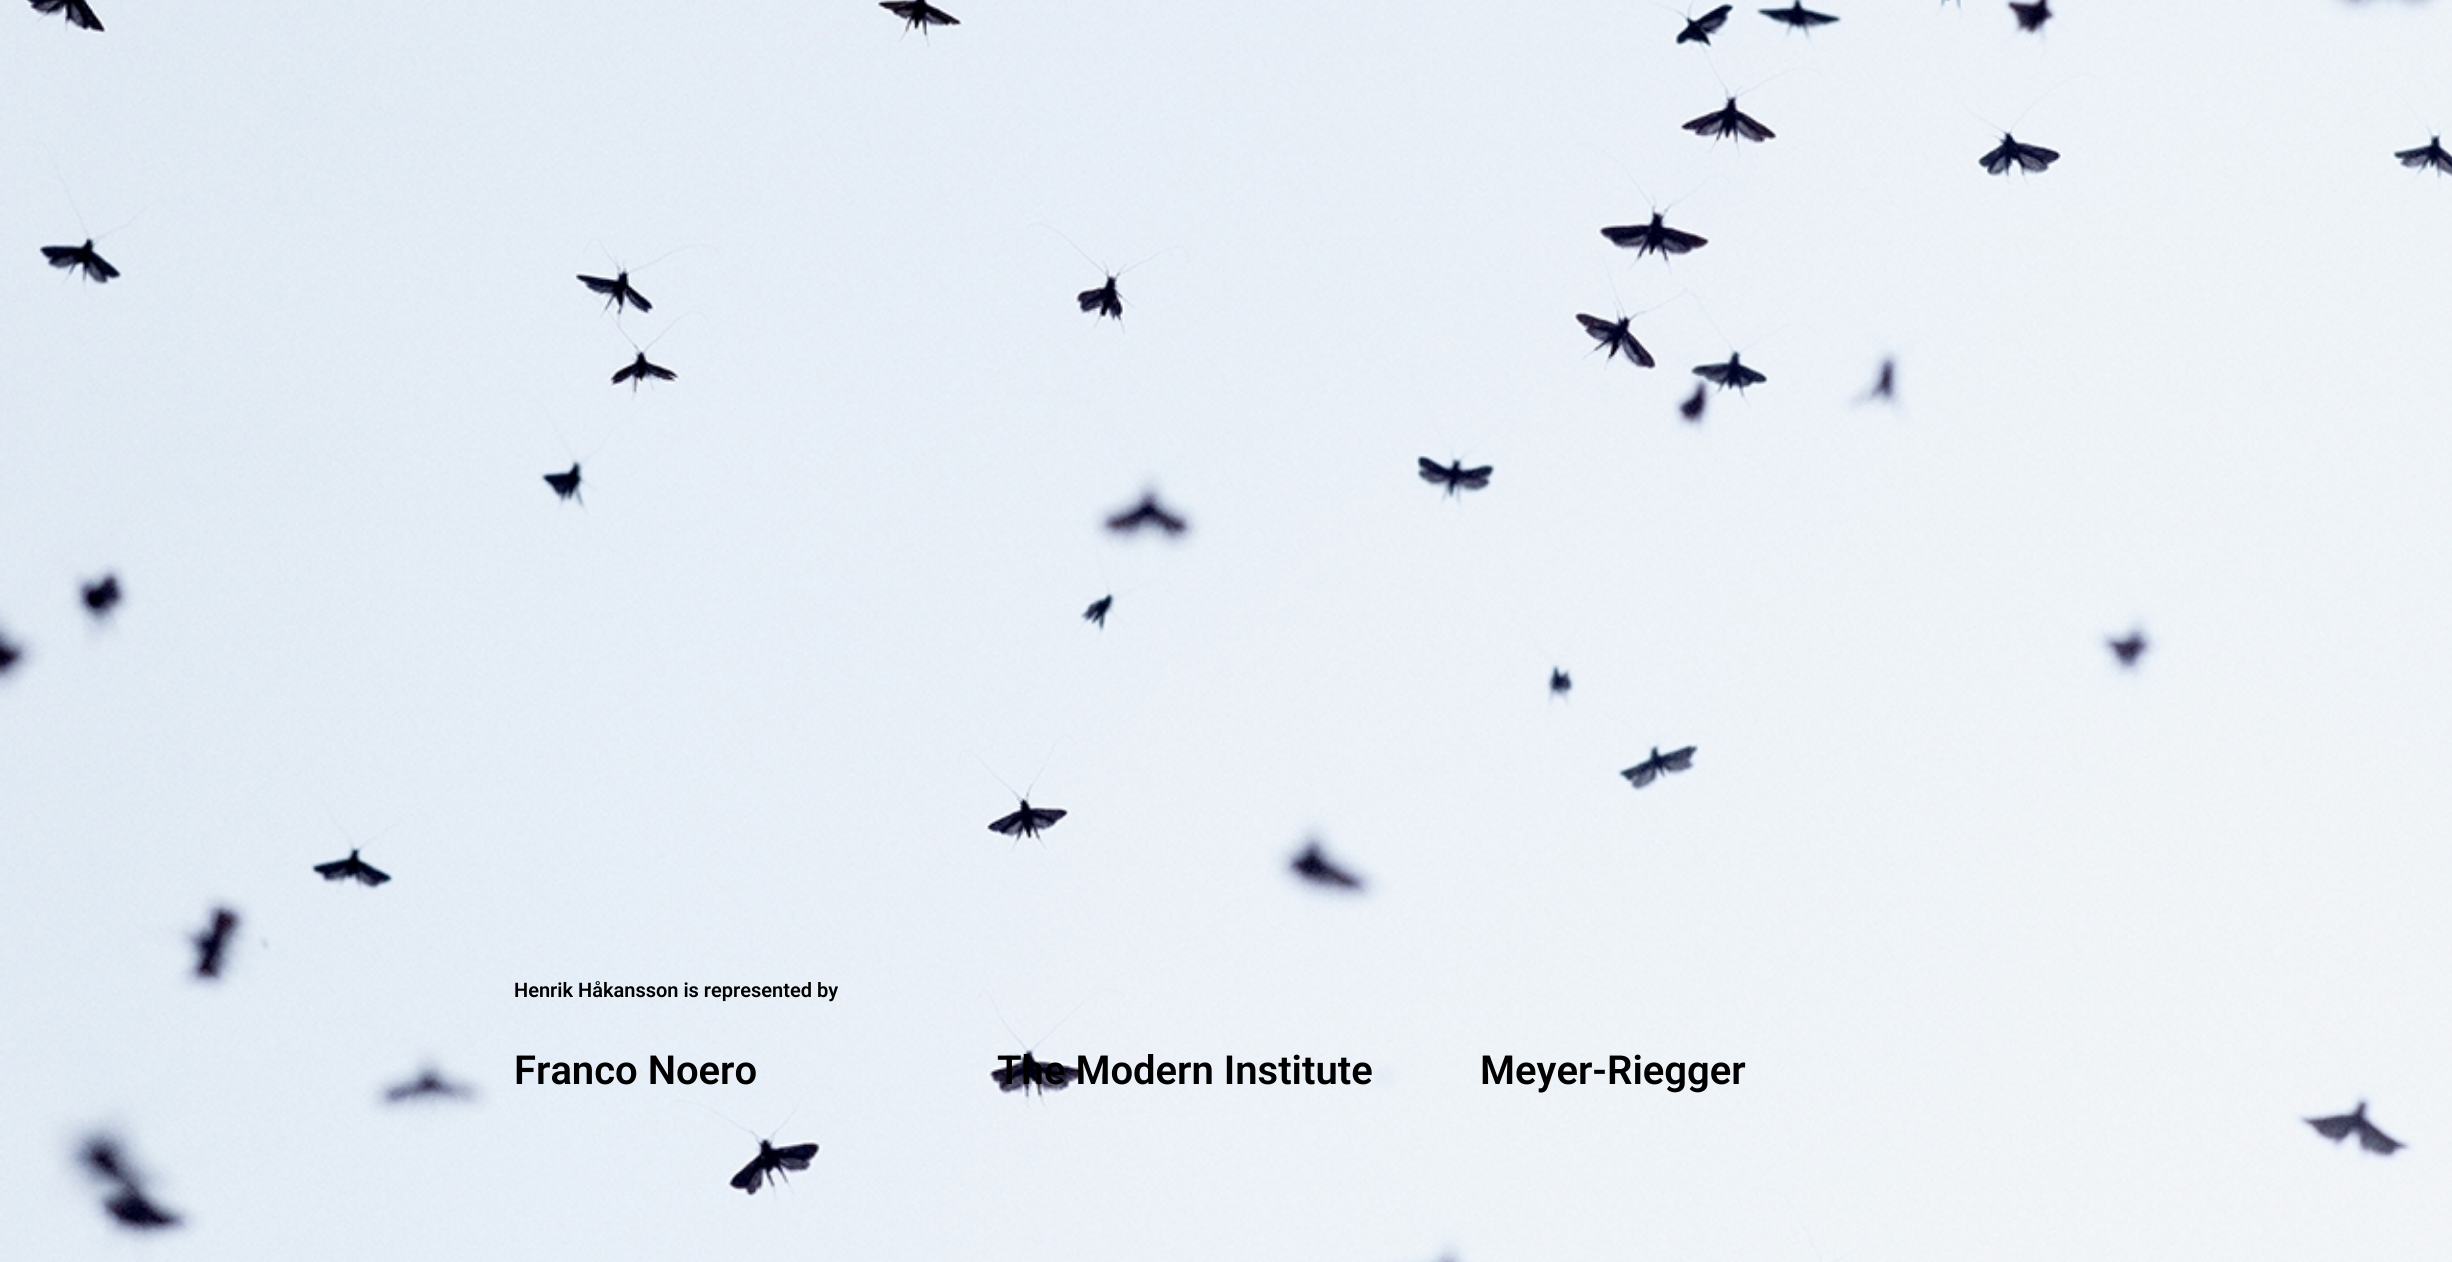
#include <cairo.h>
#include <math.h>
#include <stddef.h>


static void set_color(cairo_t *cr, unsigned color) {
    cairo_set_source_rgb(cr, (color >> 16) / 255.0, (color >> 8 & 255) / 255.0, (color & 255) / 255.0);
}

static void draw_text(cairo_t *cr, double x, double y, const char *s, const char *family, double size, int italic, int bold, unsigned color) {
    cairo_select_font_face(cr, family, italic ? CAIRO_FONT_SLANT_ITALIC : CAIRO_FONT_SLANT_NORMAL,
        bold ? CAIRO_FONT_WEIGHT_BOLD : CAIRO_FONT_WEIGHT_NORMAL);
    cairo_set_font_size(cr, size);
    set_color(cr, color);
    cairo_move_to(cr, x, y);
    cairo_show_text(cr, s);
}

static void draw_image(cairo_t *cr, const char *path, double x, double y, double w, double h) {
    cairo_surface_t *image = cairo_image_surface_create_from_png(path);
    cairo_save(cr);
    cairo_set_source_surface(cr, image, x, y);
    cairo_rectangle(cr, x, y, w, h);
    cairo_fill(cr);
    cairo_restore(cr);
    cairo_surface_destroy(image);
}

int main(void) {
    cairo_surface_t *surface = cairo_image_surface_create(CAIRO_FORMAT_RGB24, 2452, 1262);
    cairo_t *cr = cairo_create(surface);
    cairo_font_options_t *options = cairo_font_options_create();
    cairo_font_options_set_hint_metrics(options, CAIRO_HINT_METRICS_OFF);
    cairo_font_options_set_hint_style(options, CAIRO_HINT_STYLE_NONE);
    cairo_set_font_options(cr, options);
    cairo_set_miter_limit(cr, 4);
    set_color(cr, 0xFFFFFF);
    cairo_paint(cr);
    draw_image(cr, "assets/img1.png", 0, 0, 2452, 1262);
    draw_text(cr, 514, 997, "Henrik Håkansson is represented by", "Roboto SemiBold", 20, 0, 0, 0x000000);
    draw_text(cr, 514, 1084, "Franco Noero", "Roboto SemiBold", 40, 0, 0, 0x000000);
    draw_text(cr, 997, 1084, "The Modern Institute", "Roboto SemiBold", 40, 0, 0, 0x000000);
    draw_text(cr, 1480, 1084, "Meyer-Riegger", "Roboto SemiBold", 40, 0, 0, 0x000000);
    cairo_surface_write_to_png(surface, "output.png");
    cairo_font_options_destroy(options);
    cairo_destroy(cr);
    cairo_surface_destroy(surface);
    return 0;
}
